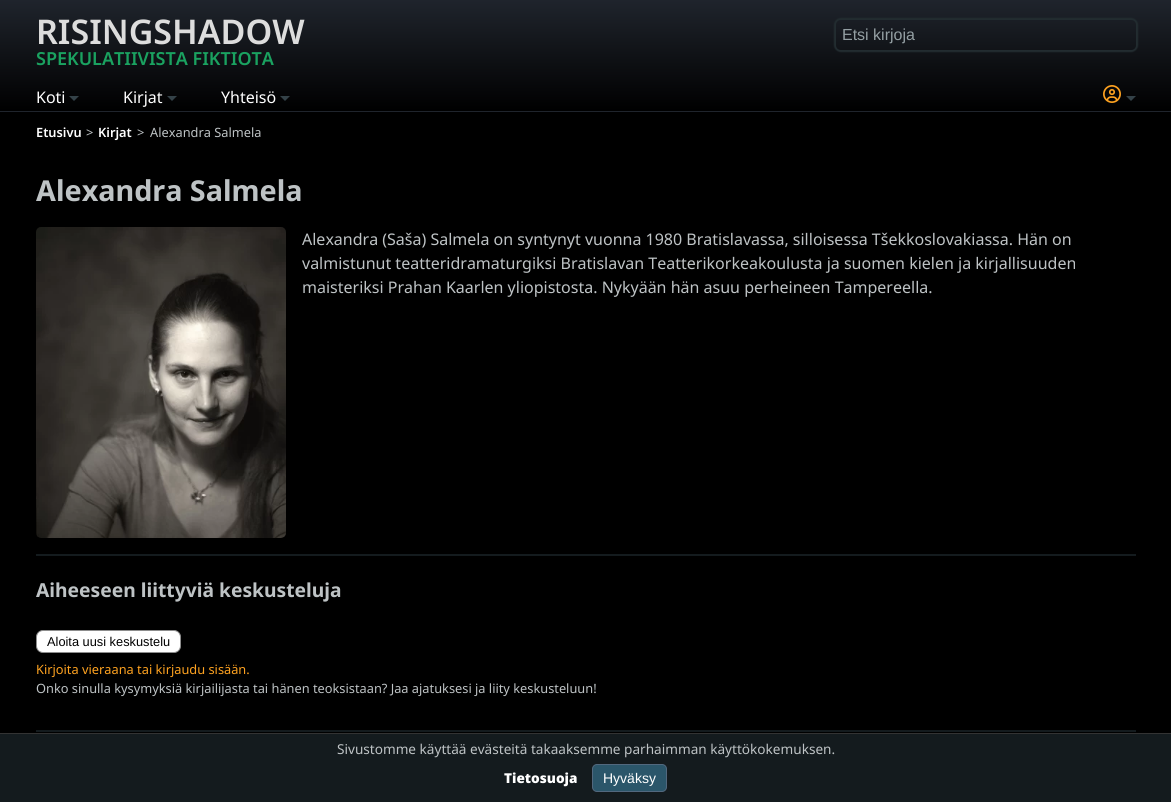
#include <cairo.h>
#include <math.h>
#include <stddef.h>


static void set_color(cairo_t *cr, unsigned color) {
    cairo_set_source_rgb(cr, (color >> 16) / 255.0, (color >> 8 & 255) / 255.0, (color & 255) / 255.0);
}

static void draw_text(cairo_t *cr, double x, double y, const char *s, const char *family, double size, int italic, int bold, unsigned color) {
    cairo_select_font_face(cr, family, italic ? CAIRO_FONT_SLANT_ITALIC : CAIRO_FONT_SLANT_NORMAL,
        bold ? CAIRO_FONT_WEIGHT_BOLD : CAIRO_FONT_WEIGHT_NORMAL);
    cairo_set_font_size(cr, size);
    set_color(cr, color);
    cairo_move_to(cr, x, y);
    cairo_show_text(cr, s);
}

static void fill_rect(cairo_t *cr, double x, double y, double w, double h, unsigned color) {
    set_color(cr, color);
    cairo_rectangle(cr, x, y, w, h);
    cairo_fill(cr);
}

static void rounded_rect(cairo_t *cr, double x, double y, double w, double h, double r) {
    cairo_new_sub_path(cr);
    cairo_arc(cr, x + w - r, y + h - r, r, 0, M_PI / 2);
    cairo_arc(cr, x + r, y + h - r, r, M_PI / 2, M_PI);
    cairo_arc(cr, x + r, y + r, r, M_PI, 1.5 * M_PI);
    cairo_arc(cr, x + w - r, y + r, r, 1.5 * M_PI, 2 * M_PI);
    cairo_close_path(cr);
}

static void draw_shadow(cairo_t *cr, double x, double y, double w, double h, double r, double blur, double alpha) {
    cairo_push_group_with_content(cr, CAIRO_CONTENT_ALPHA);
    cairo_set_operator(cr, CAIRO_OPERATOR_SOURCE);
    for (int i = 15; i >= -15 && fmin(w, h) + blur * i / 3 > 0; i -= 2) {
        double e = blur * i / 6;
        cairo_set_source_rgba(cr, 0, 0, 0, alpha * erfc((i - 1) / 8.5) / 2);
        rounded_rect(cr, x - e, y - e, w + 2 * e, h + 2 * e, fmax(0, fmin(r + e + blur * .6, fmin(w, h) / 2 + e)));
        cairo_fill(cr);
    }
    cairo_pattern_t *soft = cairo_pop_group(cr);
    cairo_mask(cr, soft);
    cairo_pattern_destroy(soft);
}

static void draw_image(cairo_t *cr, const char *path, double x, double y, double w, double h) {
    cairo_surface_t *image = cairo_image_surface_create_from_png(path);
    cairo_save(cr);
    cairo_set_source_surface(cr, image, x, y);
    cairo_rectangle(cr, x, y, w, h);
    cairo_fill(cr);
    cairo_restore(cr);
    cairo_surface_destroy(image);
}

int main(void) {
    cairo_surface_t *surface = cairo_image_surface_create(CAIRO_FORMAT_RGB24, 1171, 802);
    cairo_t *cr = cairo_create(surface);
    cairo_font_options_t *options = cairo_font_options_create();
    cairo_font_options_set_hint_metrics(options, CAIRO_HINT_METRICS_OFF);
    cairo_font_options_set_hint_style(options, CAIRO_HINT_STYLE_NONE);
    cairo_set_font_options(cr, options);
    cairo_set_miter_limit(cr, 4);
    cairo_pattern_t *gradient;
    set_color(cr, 0xFFFFFF);
    cairo_paint(cr);
    gradient = cairo_pattern_create_linear(586, 0, 586, 111);
    cairo_pattern_add_color_stop_rgba(gradient, 0, 0.122, 0.141, 0.173, 1);
    cairo_pattern_add_color_stop_rgba(gradient, 1, 0, 0, 0, 1);
    cairo_set_source(cr, gradient);
    cairo_pattern_destroy(gradient);
    cairo_rectangle(cr, 0, 0, 1171, 111);
    cairo_fill(cr);
    gradient = cairo_pattern_create_linear(586, 111, 586, 222);
    cairo_pattern_add_color_stop_rgba(gradient, 0, 0.122, 0.141, 0.173, 1);
    cairo_pattern_add_color_stop_rgba(gradient, 1, 0, 0, 0, 1);
    cairo_set_source(cr, gradient);
    cairo_pattern_destroy(gradient);
    cairo_rectangle(cr, 0, 111, 1171, 1);
    cairo_fill(cr);
    draw_text(cr, 36, 44, "RISINGSHADOW", "Noto Sans SemiBold", 34, 0, 0, 0xDDDDDD);
    draw_text(cr, 36, 65, "SPEKULATIIVISTA FIKTIOTA", "Noto Sans SemiBold", 18, 0, 0, 0x1AA260);
    cairo_save(cr);
    cairo_set_fill_rule(cr, CAIRO_FILL_RULE_EVEN_ODD);
    cairo_new_path(cr);
    cairo_move_to(cr, 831, 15);
    cairo_line_to(cr, 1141, 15);
    cairo_line_to(cr, 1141, 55);
    cairo_line_to(cr, 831, 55);
    cairo_close_path(cr);
    cairo_move_to(cr, 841, 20);
    cairo_line_to(cr, 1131, 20);
    cairo_curve_to(cr, 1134, 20, 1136, 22, 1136, 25);
    cairo_line_to(cr, 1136, 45);
    cairo_curve_to(cr, 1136, 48, 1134, 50, 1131, 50);
    cairo_line_to(cr, 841, 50);
    cairo_curve_to(cr, 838, 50, 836, 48, 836, 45);
    cairo_line_to(cr, 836, 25);
    cairo_curve_to(cr, 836, 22, 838, 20, 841, 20);
    cairo_close_path(cr);
    cairo_clip(cr);
    set_color(cr, 0x222C30);
    draw_shadow(cr, 834, 18, 304, 34, 7, 0.5, 1);
    cairo_restore(cr);
    draw_text(cr, 842, 40, "Etsi kirjoja", "Liberation Sans", 16, 0, 0, 0x949FA3);
    draw_text(cr, 36, 103, "Koti", "Noto Sans", 16, 0, 0, 0xFFFFFF);
    set_color(cr, 0x344248);
    cairo_new_path(cr);
    cairo_move_to(cr, 69, 96);
    cairo_line_to(cr, 79, 96);
    cairo_line_to(cr, 74, 101);
    cairo_close_path(cr);
    cairo_fill(cr);
    draw_text(cr, 123, 103, "Kirjat", "Noto Sans", 16, 0, 0, 0xFFFFFF);
    set_color(cr, 0x344248);
    cairo_new_path(cr);
    cairo_move_to(cr, 167, 96);
    cairo_line_to(cr, 177, 96);
    cairo_line_to(cr, 172, 101);
    cairo_close_path(cr);
    cairo_fill(cr);
    draw_text(cr, 221, 103, "Yhteisö", "Noto Sans", 16, 0, 0, 0xFFFFFF);
    set_color(cr, 0x344248);
    cairo_new_path(cr);
    cairo_move_to(cr, 280, 96);
    cairo_line_to(cr, 290, 96);
    cairo_line_to(cr, 285, 101);
    cairo_close_path(cr);
    cairo_fill(cr);
    draw_image(cr, "assets/img1.png", 1103, 85, 18, 18);
    cairo_new_path(cr);
    cairo_move_to(cr, 1126, 96);
    cairo_line_to(cr, 1136, 96);
    cairo_line_to(cr, 1131, 101);
    cairo_close_path(cr);
    cairo_fill(cr);
    fill_rect(cr, 0, 112, 1171, 621, 0x000000);
    draw_text(cr, 36, 137, "Etusivu", "Noto Sans SemiBold", 12.8, 0, 0, 0xFFFFFF);
    draw_text(cr, 86, 137, ">", "Noto Sans", 12.8, 0, 0, 0xBEC3C5);
    draw_text(cr, 98, 137, "Kirjat", "Noto Sans SemiBold", 12.8, 0, 0, 0xFFFFFF);
    draw_text(cr, 137, 137, ">", "Noto Sans", 12.8, 0, 0, 0xBEC3C5);
    draw_text(cr, 150, 137, "Alexandra Salmela", "Noto Sans", 12.8, 0, 0, 0xBEC3C5);
    draw_text(cr, 36, 201, "Alexandra Salmela", "Noto Sans", 28.75, 0, 1, 0xBEC3C5);
    draw_image(cr, "assets/img2.png", 36, 227, 250, 311);
    draw_text(cr, 302, 245, "Alexandra (Saša) Salmela on syntynyt vuonna 1980 Bratislavassa, silloisessa Tšekkoslovakiassa. Hän on", "Noto Sans", 16, 0, 0, 0xBEC3C5);
    draw_text(cr, 302, 269, "valmistunut teatteridramaturgiksi Bratislavan Teatterikorkeakoulusta ja suomen kielen ja kirjallisuuden", "Noto Sans", 16, 0, 0, 0xBEC3C5);
    draw_text(cr, 302, 293, "maisteriksi Prahan Kaarlen yliopistosta. Nykyään hän asuu perheineen Tampereella.", "Noto Sans", 16, 0, 0, 0xBEC3C5);
    fill_rect(cr, 36, 554, 1100, 2, 0x141B1E);
    draw_text(cr, 36, 597, "Aiheeseen liittyviä keskusteluja", "Noto Sans", 19.25, 0, 1, 0xBEC3C5);
    set_color(cr, 0xFFFFFF);
    rounded_rect(cr, 36.5, 630.5, 144, 22, 6.5);
    cairo_fill_preserve(cr);
    set_color(cr, 0x8D8D8D);
    cairo_set_line_width(cr, 1);
    cairo_stroke(cr);
    draw_text(cr, 47, 646, "Aloita uusi keskustelu", "Liberation Sans", 12.8, 0, 0, 0x000000);
    draw_text(cr, 36, 674, "Kirjoita vieraana tai kirjaudu sisään.", "Noto Sans", 12.8, 0, 0, 0xFEA220);
    draw_text(cr, 36, 693, "Onko sinulla kysymyksiä kirjailijasta tai hänen teoksistaan? Jaa ajatuksesi ja liity keskusteluun!", "Noto Sans", 12.8, 0, 0, 0xBEC3C5);
    fill_rect(cr, 36, 730, 1100, 2, 0x141B1E);
    fill_rect(cr, 0, 734, 1171, 68, 0x141B1E);
    fill_rect(cr, 0, 733, 1171, 1, 0x333333);
    draw_text(cr, 337, 754, "Sivustomme käyttää evästeitä takaaksemme parhaimman käyttökokemuksen.", "Noto Sans", 13.6, 0, 0, 0xBEC3C5);
    draw_text(cr, 504, 783, "Tietosuoja", "Noto Sans Black", 13.6, 0, 0, 0xFFFFFF);
    set_color(cr, 0x2B566A);
    rounded_rect(cr, 592.5, 764.5, 74, 27, 4.5);
    cairo_fill_preserve(cr);
    set_color(cr, 0x52687E);
    cairo_stroke(cr);
    draw_text(cr, 603, 783, "Hyväksy", "Liberation Sans", 14, 0, 0, 0xFFFFFF);
    cairo_surface_write_to_png(surface, "output.png");
    cairo_font_options_destroy(options);
    cairo_destroy(cr);
    cairo_surface_destroy(surface);
    return 0;
}
